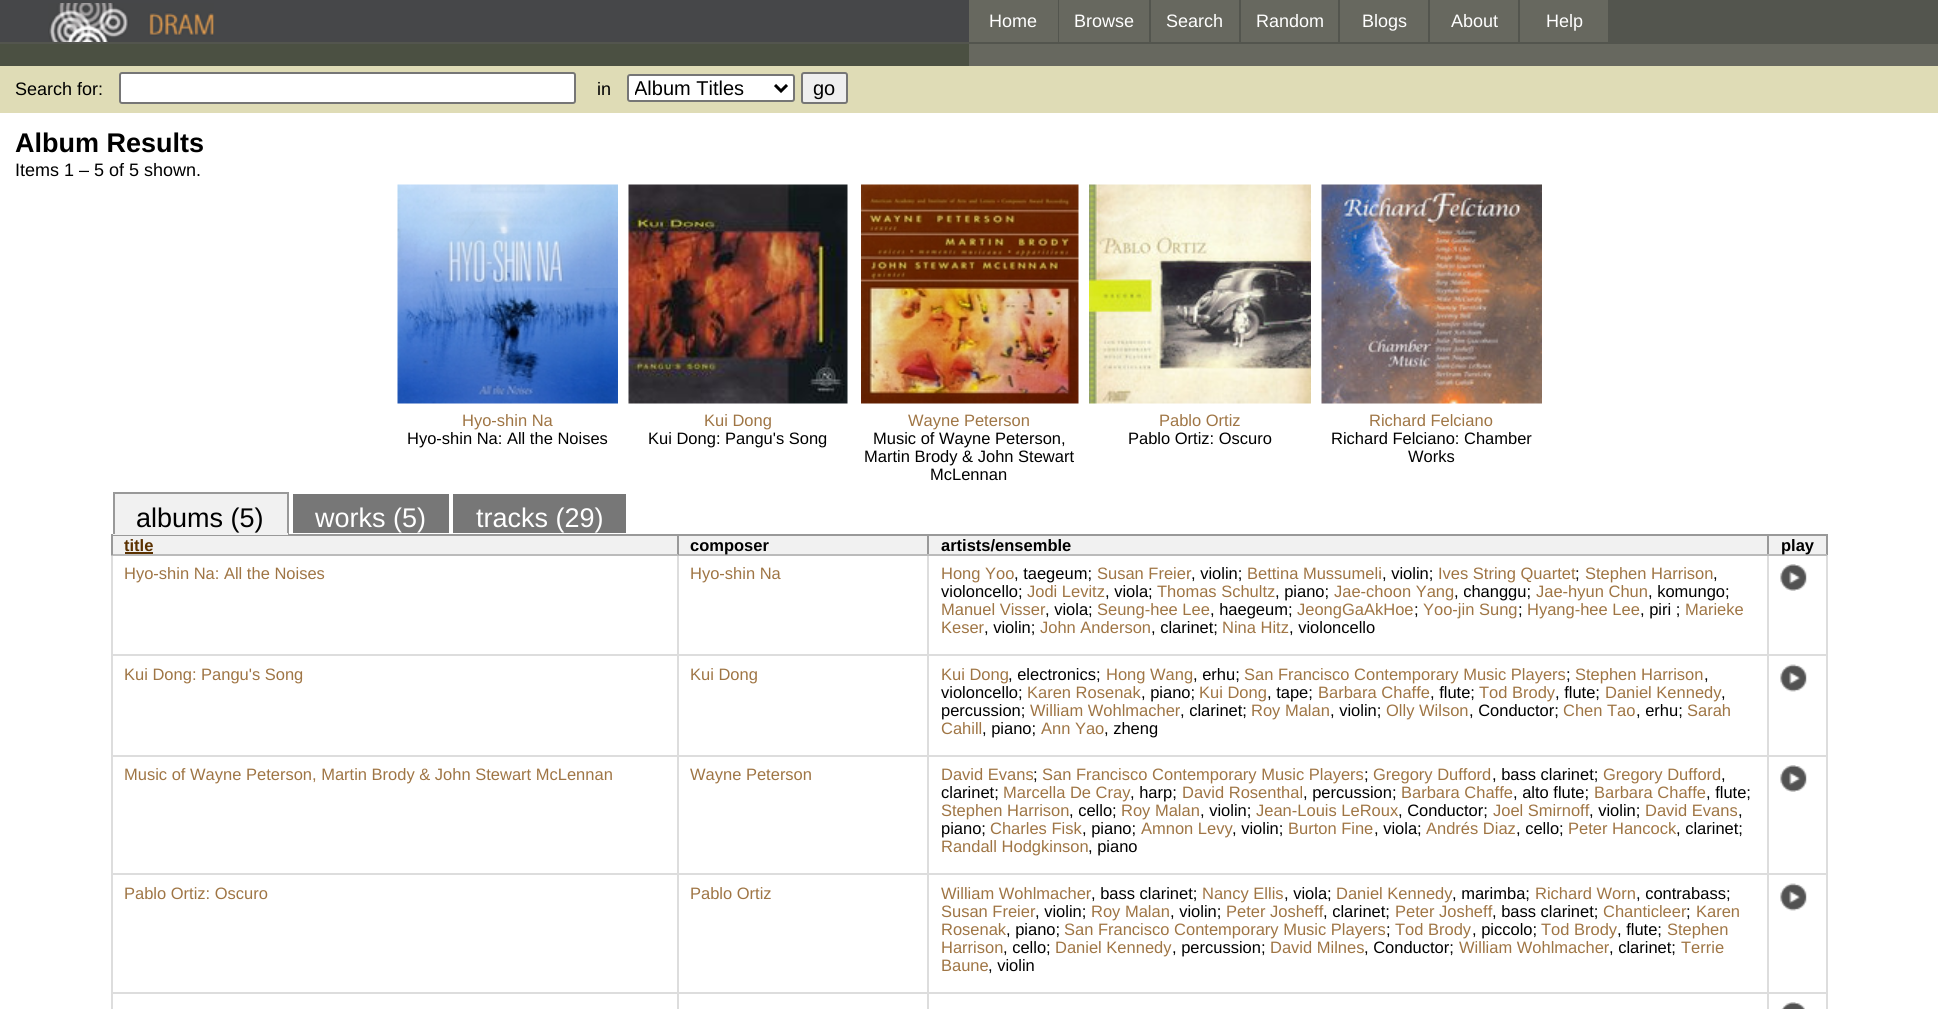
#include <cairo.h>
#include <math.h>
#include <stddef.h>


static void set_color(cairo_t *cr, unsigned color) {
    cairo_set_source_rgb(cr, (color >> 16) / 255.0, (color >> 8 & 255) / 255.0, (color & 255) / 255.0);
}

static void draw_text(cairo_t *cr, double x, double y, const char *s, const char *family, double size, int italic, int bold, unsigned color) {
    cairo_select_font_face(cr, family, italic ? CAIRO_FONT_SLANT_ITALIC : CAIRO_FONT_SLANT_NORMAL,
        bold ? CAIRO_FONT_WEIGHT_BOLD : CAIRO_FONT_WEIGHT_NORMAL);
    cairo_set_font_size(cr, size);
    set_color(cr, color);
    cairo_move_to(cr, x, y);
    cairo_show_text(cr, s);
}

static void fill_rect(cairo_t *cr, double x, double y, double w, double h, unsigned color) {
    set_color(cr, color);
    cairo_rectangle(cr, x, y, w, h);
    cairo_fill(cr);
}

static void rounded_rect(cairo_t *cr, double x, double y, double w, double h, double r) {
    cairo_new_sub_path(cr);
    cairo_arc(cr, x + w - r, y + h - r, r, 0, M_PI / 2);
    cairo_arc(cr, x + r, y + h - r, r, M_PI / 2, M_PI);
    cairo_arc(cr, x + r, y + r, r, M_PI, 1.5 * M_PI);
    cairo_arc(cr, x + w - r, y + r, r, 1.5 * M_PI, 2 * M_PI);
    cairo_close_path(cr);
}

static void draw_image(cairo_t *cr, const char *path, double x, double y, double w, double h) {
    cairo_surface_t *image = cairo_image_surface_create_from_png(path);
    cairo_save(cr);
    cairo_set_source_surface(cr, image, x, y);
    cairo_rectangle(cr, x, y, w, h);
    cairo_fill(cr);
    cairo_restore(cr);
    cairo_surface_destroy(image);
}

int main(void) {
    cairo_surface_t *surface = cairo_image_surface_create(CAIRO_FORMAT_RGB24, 1938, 1009);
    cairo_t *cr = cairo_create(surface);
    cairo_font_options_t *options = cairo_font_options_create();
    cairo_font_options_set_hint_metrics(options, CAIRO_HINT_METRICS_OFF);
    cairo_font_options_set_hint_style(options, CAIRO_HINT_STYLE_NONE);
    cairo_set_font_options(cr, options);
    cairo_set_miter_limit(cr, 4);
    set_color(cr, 0x464749);
    cairo_paint(cr);
    draw_image(cr, "assets/img1.png", 48, 3, 166, 39);
    fill_rect(cr, 1058, 0, 880, 42, 0x53554E);
    fill_rect(cr, 969, 0, 89, 42, 0x67685F);
    draw_text(cr, 989, 27, "Home", "Liberation Sans", 18, 0, 0, 0xFFFFFF);
    fill_rect(cr, 1059, 0, 90, 42, 0x67685F);
    draw_text(cr, 1074, 27, "Browse", "Liberation Sans", 18, 0, 0, 0xFFFFFF);
    fill_rect(cr, 1151, 0, 88, 42, 0x67685F);
    draw_text(cr, 1166, 27, "Search", "Liberation Sans", 18, 0, 0, 0xFFFFFF);
    fill_rect(cr, 1241, 0, 97, 42, 0x67685F);
    draw_text(cr, 1256, 27, "Random", "Liberation Sans", 18, 0, 0, 0xFFFFFF);
    fill_rect(cr, 1340, 0, 88, 42, 0x67685F);
    draw_text(cr, 1362, 27, "Blogs", "Liberation Sans", 18, 0, 0, 0xFFFFFF);
    fill_rect(cr, 1430, 0, 88, 42, 0x67685F);
    draw_text(cr, 1451, 27, "About", "Liberation Sans", 18, 0, 0, 0xFFFFFF);
    fill_rect(cr, 1520, 0, 88, 42, 0x67685F);
    draw_text(cr, 1546, 27, "Help", "Liberation Sans", 18, 0, 0, 0xFFFFFF);
    fill_rect(cr, 969, 44, 969, 22, 0x67685F);
    fill_rect(cr, 0, 42, 1938, 2, 0x53554E);
    fill_rect(cr, 0, 44, 969, 22, 0x4B5042);
    fill_rect(cr, 0, 66, 1938, 47, 0xDFDCB6);
    draw_text(cr, 15, 95, "Search for:", "Liberation Sans", 18, 0, 0, 0x000000);
    set_color(cr, 0xFFFFFF);
    rounded_rect(cr, 120, 73, 455, 30, 2);
    cairo_fill_preserve(cr);
    set_color(cr, 0x767676);
    cairo_stroke(cr);
    draw_text(cr, 597, 95, "in", "Liberation Sans", 18, 0, 0, 0x000000);
    set_color(cr, 0xFFFFFF);
    rounded_rect(cr, 628, 75, 166, 26, 2);
    cairo_fill_preserve(cr);
    set_color(cr, 0x767676);
    cairo_stroke(cr);
    cairo_new_path(cr);
    cairo_move_to(cr, 775, 85);
    cairo_line_to(cr, 781, 91);
    cairo_line_to(cr, 787, 85);
    set_color(cr, 0x000000);
    cairo_set_line_width(cr, 3);
    cairo_stroke(cr);
    cairo_save(cr);
    cairo_rectangle(cr, 635, 75, 135, 26);
    cairo_clip(cr);
    draw_text(cr, 634, 95, "Album Titles", "Liberation Sans", 20, 0, 0, 0x000000);
    cairo_restore(cr);
    set_color(cr, 0xEFEFEF);
    rounded_rect(cr, 802, 73, 45, 30, 2);
    cairo_fill_preserve(cr);
    set_color(cr, 0x767676);
    cairo_set_line_width(cr, 2);
    cairo_stroke(cr);
    draw_text(cr, 813, 95, "go", "Liberation Sans", 20, 0, 0, 0x000000);
    fill_rect(cr, 0, 113, 1938, 896, 0xFFFFFF);
    draw_text(cr, 15, 152, "Album Results", "Liberation Sans", 27, 0, 1, 0x000000);
    draw_text(cr, 15, 176, "Items 1 – 5 of 5 shown.", "Liberation Sans", 18, 0, 0, 0x000000);
    draw_image(cr, "assets/img2.png", 397, 184, 221, 220);
    draw_text(cr, 462, 426, "Hyo-shin Na", "Liberation Sans", 16.5, 0, 0, 0x9F7544);
    draw_text(cr, 407, 444, "Hyo-shin Na: All the Noises", "Liberation Sans", 16.5, 0, 0, 0x000000);
    draw_image(cr, "assets/img3.png", 628, 184, 220, 220);
    draw_text(cr, 704, 426, "Kui Dong", "Liberation Sans", 16.5, 0, 0, 0x9F7544);
    draw_text(cr, 648, 444, "Kui Dong: Pangu's Song", "Liberation Sans", 16.5, 0, 0, 0x000000);
    draw_image(cr, "assets/img4.png", 861, 184, 218, 220);
    draw_text(cr, 908, 426, "Wayne Peterson", "Liberation Sans", 16.5, 0, 0, 0x9F7544);
    draw_text(cr, 873, 444, "Music of Wayne Peterson,", "Liberation Sans", 16.5, 0, 0, 0x000000);
    draw_text(cr, 864, 462, "Martin Brody & John Stewart", "Liberation Sans", 16.5, 0, 0, 0x000000);
    draw_text(cr, 930, 480, "McLennan", "Liberation Sans", 16.5, 0, 0, 0x000000);
    draw_image(cr, "assets/img5.png", 1089, 184, 222, 220);
    draw_text(cr, 1159, 426, "Pablo Ortiz", "Liberation Sans", 16.5, 0, 0, 0x9F7544);
    draw_text(cr, 1128, 444, "Pablo Ortiz: Oscuro", "Liberation Sans", 16.5, 0, 0, 0x000000);
    draw_image(cr, "assets/img6.png", 1321, 184, 221, 220);
    draw_text(cr, 1369, 426, "Richard Felciano", "Liberation Sans", 16.5, 0, 0, 0x9F7544);
    draw_text(cr, 1331, 444, "Richard Felciano: Chamber", "Liberation Sans", 16.5, 0, 0, 0x000000);
    draw_text(cr, 1408, 462, "Works", "Liberation Sans", 16.5, 0, 0, 0x000000);
    fill_rect(cr, 115, 494, 172, 39, 0xF1F1F1);
    draw_text(cr, 136, 527, "albums (5)", "Liberation Sans", 27, 0, 0, 0x000000);
    fill_rect(cr, 113, 492, 175, 2, 0x999999);
    fill_rect(cr, 287, 492, 2, 42, 0x999999);
    fill_rect(cr, 1767, 534, 60, 2, 0x999999);
    fill_rect(cr, 1826, 554, 2, 455, 0xDDDDDD);
    fill_rect(cr, 1826, 534, 2, 21, 0x999999);
    fill_rect(cr, 1767, 992, 2, 17, 0xDDDDDD);
    fill_rect(cr, 1767, 992, 60, 2, 0xDDDDDD);
    fill_rect(cr, 1767, 873, 2, 120, 0xDDDDDD);
    fill_rect(cr, 1767, 873, 60, 2, 0xDDDDDD);
    fill_rect(cr, 1767, 755, 2, 120, 0xDDDDDD);
    fill_rect(cr, 1767, 755, 60, 2, 0xDDDDDD);
    fill_rect(cr, 1767, 654, 2, 102, 0xDDDDDD);
    fill_rect(cr, 1767, 654, 60, 2, 0xDDDDDD);
    fill_rect(cr, 1767, 554, 2, 102, 0xDDDDDD);
    fill_rect(cr, 1767, 554, 60, 2, 0xBBBBBB);
    fill_rect(cr, 1767, 534, 2, 21, 0x999999);
    fill_rect(cr, 927, 534, 842, 2, 0x999999);
    fill_rect(cr, 927, 992, 2, 17, 0xDDDDDD);
    fill_rect(cr, 927, 992, 842, 2, 0xDDDDDD);
    fill_rect(cr, 927, 873, 2, 120, 0xDDDDDD);
    fill_rect(cr, 927, 873, 842, 2, 0xDDDDDD);
    fill_rect(cr, 927, 755, 2, 120, 0xDDDDDD);
    fill_rect(cr, 927, 755, 842, 2, 0xDDDDDD);
    fill_rect(cr, 927, 654, 2, 102, 0xDDDDDD);
    fill_rect(cr, 927, 654, 842, 2, 0xDDDDDD);
    fill_rect(cr, 927, 554, 2, 102, 0xDDDDDD);
    fill_rect(cr, 927, 554, 842, 2, 0xBBBBBB);
    fill_rect(cr, 927, 534, 2, 21, 0x999999);
    fill_rect(cr, 677, 534, 252, 2, 0x999999);
    fill_rect(cr, 677, 992, 2, 17, 0xDDDDDD);
    fill_rect(cr, 677, 992, 252, 2, 0xDDDDDD);
    fill_rect(cr, 677, 873, 2, 120, 0xDDDDDD);
    fill_rect(cr, 677, 873, 252, 2, 0xDDDDDD);
    fill_rect(cr, 677, 755, 2, 120, 0xDDDDDD);
    fill_rect(cr, 677, 755, 252, 2, 0xDDDDDD);
    fill_rect(cr, 677, 654, 2, 102, 0xDDDDDD);
    fill_rect(cr, 677, 654, 252, 2, 0xDDDDDD);
    fill_rect(cr, 677, 554, 2, 102, 0xDDDDDD);
    fill_rect(cr, 677, 554, 252, 2, 0xBBBBBB);
    fill_rect(cr, 677, 534, 2, 21, 0x999999);
    fill_rect(cr, 111, 534, 567, 2, 0x999999);
    fill_rect(cr, 113, 533, 175, 2, 0xF1F1F1);
    fill_rect(cr, 113, 492, 2, 42, 0x999999);
    fill_rect(cr, 293, 494, 156, 39, 0x777777);
    draw_text(cr, 315, 527, "works (5)", "Liberation Sans", 27, 0, 0, 0xFFFFFF);
    fill_rect(cr, 453, 494, 173, 39, 0x777777);
    draw_text(cr, 476, 527, "tracks (29)", "Liberation Sans", 27, 0, 0, 0xFFFFFF);
    fill_rect(cr, 113, 536, 564, 18, 0xF1F1F1);
    fill_rect(cr, 111, 992, 2, 17, 0xDDDDDD);
    fill_rect(cr, 111, 992, 567, 2, 0xDDDDDD);
    fill_rect(cr, 111, 873, 2, 120, 0xDDDDDD);
    fill_rect(cr, 111, 873, 567, 2, 0xDDDDDD);
    fill_rect(cr, 111, 755, 2, 120, 0xDDDDDD);
    fill_rect(cr, 111, 755, 567, 2, 0xDDDDDD);
    fill_rect(cr, 111, 654, 2, 102, 0xDDDDDD);
    fill_rect(cr, 111, 654, 567, 2, 0xDDDDDD);
    fill_rect(cr, 111, 554, 2, 102, 0xDDDDDD);
    fill_rect(cr, 111, 554, 567, 2, 0xBBBBBB);
    fill_rect(cr, 111, 534, 2, 21, 0x999999);
    draw_text(cr, 124, 551, "title", "Liberation Sans", 16.5, 0, 1, 0x5B3100);
    fill_rect(cr, 125, 552, 28, 2, 0x5B3100);
    fill_rect(cr, 679, 536, 248, 18, 0xF1F1F1);
    draw_text(cr, 690, 551, "composer", "Liberation Sans", 16.5, 0, 1, 0x000000);
    fill_rect(cr, 929, 536, 838, 18, 0xF1F1F1);
    draw_text(cr, 941, 551, "artists/ensemble", "Liberation Sans", 16.5, 0, 1, 0x000000);
    fill_rect(cr, 1769, 536, 57, 18, 0xF1F1F1);
    draw_text(cr, 1781, 551, "play", "Liberation Sans", 16.5, 0, 1, 0x000000);
    draw_image(cr, "assets/img7.png", 1781, 1002, 24, 7);
    draw_text(cr, 124, 579, "Hyo-shin Na: All the Noises", "Liberation Sans", 16.5, 0, 0, 0x9F7544);
    draw_text(cr, 690, 579, "Hyo-shin Na", "Liberation Sans", 16.5, 0, 0, 0x9F7544);
    draw_text(cr, 941, 579, "Hong Yoo", "Liberation Sans", 16.5, 0, 0, 0x9F7544);
    draw_text(cr, 1014, 579, ", taegeum;", "Liberation Sans", 16.5, 0, 0, 0x000000);
    draw_text(cr, 1097, 579, "Susan Freier", "Liberation Sans", 16.5, 0, 0, 0x9F7544);
    draw_text(cr, 1191, 579, ", violin;", "Liberation Sans", 16.5, 0, 0, 0x000000);
    draw_text(cr, 1247, 579, "Bettina Mussumeli", "Liberation Sans", 16.5, 0, 0, 0x9F7544);
    draw_text(cr, 1382, 579, ", violin;", "Liberation Sans", 16.5, 0, 0, 0x000000);
    draw_text(cr, 1438, 579, "Ives String Quartet", "Liberation Sans", 16.5, 0, 0, 0x9F7544);
    draw_text(cr, 1575, 579, ";", "Liberation Sans", 16.5, 0, 0, 0x000000);
    draw_text(cr, 1585, 579, "Stephen Harrison", "Liberation Sans", 16.5, 0, 0, 0x9F7544);
    draw_text(cr, 1713, 579, ",", "Liberation Sans", 16.5, 0, 0, 0x000000);
    draw_text(cr, 941, 597, "violoncello;", "Liberation Sans", 16.5, 0, 0, 0x000000);
    draw_text(cr, 1027, 597, "Jodi Levitz", "Liberation Sans", 16.5, 0, 0, 0x9F7544);
    draw_text(cr, 1105, 597, ", viola;", "Liberation Sans", 16.5, 0, 0, 0x000000);
    draw_text(cr, 1157, 597, "Thomas Schultz", "Liberation Sans", 16.5, 0, 0, 0x9F7544);
    draw_text(cr, 1275, 597, ", piano;", "Liberation Sans", 16.5, 0, 0, 0x000000);
    draw_text(cr, 1334, 597, "Jae-choon Yang", "Liberation Sans", 16.5, 0, 0, 0x9F7544);
    draw_text(cr, 1454, 597, ", changgu;", "Liberation Sans", 16.5, 0, 0, 0x000000);
    draw_text(cr, 1536, 597, "Jae-hyun Chun", "Liberation Sans", 16.5, 0, 0, 0x9F7544);
    draw_text(cr, 1648, 597, ", komungo;", "Liberation Sans", 16.5, 0, 0, 0x000000);
    draw_text(cr, 941, 615, "Manuel Visser", "Liberation Sans", 16.5, 0, 0, 0x9F7544);
    draw_text(cr, 1045, 615, ", viola;", "Liberation Sans", 16.5, 0, 0, 0x000000);
    draw_text(cr, 1097, 615, "Seung-hee Lee", "Liberation Sans", 16.5, 0, 0, 0x9F7544);
    draw_text(cr, 1210, 615, ", haegeum;", "Liberation Sans", 16.5, 0, 0, 0x000000);
    draw_text(cr, 1297, 615, "JeongGaAkHoe", "Liberation Sans", 16.5, 0, 0, 0x9F7544);
    draw_text(cr, 1414, 615, ";", "Liberation Sans", 16.5, 0, 0, 0x000000);
    draw_text(cr, 1423, 615, "Yoo-jin Sung", "Liberation Sans", 16.5, 0, 0, 0x9F7544);
    draw_text(cr, 1518, 615, ";", "Liberation Sans", 16.5, 0, 0, 0x000000);
    draw_text(cr, 1527, 615, "Hyang-hee Lee", "Liberation Sans", 16.5, 0, 0, 0x9F7544);
    draw_text(cr, 1640, 615, ", piri ;", "Liberation Sans", 16.5, 0, 0, 0x000000);
    draw_text(cr, 1685, 615, "Marieke", "Liberation Sans", 16.5, 0, 0, 0x9F7544);
    draw_text(cr, 941, 633, "Keser", "Liberation Sans", 16.5, 0, 0, 0x9F7544);
    draw_text(cr, 984, 633, ", violin;", "Liberation Sans", 16.5, 0, 0, 0x000000);
    draw_text(cr, 1040, 633, "John Anderson", "Liberation Sans", 16.5, 0, 0, 0x9F7544);
    draw_text(cr, 1151, 633, ", clarinet;", "Liberation Sans", 16.5, 0, 0, 0x000000);
    draw_text(cr, 1222, 633, "Nina Hitz", "Liberation Sans", 16.5, 0, 0, 0x9F7544);
    draw_text(cr, 1289, 633, ", violoncello", "Liberation Sans", 16.5, 0, 0, 0x000000);
    draw_image(cr, "assets/img8.png", 1780, 564, 27, 27);
    draw_text(cr, 124, 680, "Kui Dong: Pangu's Song", "Liberation Sans", 16.5, 0, 0, 0x9F7544);
    draw_text(cr, 690, 680, "Kui Dong", "Liberation Sans", 16.5, 0, 0, 0x9F7544);
    draw_text(cr, 941, 680, "Kui Dong", "Liberation Sans", 16.5, 0, 0, 0x9F7544);
    draw_text(cr, 1008, 680, ", electronics;", "Liberation Sans", 16.5, 0, 0, 0x000000);
    draw_text(cr, 1106, 680, "Hong Wang", "Liberation Sans", 16.5, 0, 0, 0x9F7544);
    draw_text(cr, 1193, 680, ", erhu;", "Liberation Sans", 16.5, 0, 0, 0x000000);
    draw_text(cr, 1244, 680, "San Francisco Contemporary Music Players", "Liberation Sans", 16.5, 0, 0, 0x9F7544);
    draw_text(cr, 1566, 680, ";", "Liberation Sans", 16.5, 0, 0, 0x000000);
    draw_text(cr, 1575, 680, "Stephen Harrison", "Liberation Sans", 16.5, 0, 0, 0x9F7544);
    draw_text(cr, 1704, 680, ",", "Liberation Sans", 16.5, 0, 0, 0x000000);
    draw_text(cr, 941, 698, "violoncello;", "Liberation Sans", 16.5, 0, 0, 0x000000);
    draw_text(cr, 1027, 698, "Karen Rosenak", "Liberation Sans", 16.5, 0, 0, 0x9F7544);
    draw_text(cr, 1141, 698, ", piano;", "Liberation Sans", 16.5, 0, 0, 0x000000);
    draw_text(cr, 1199, 698, "Kui Dong", "Liberation Sans", 16.5, 0, 0, 0x9F7544);
    draw_text(cr, 1267, 698, ", tape;", "Liberation Sans", 16.5, 0, 0, 0x000000);
    draw_text(cr, 1318, 698, "Barbara Chaffe", "Liberation Sans", 16.5, 0, 0, 0x9F7544);
    draw_text(cr, 1430, 698, ", flute;", "Liberation Sans", 16.5, 0, 0, 0x000000);
    draw_text(cr, 1479, 698, "Tod Brody", "Liberation Sans", 16.5, 0, 0, 0x9F7544);
    draw_text(cr, 1555, 698, ", flute;", "Liberation Sans", 16.5, 0, 0, 0x000000);
    draw_text(cr, 1605, 698, "Daniel Kennedy", "Liberation Sans", 16.5, 0, 0, 0x9F7544);
    draw_text(cr, 1721, 698, ",", "Liberation Sans", 16.5, 0, 0, 0x000000);
    draw_text(cr, 941, 716, "percussion;", "Liberation Sans", 16.5, 0, 0, 0x000000);
    draw_text(cr, 1030, 716, "William Wohlmacher", "Liberation Sans", 16.5, 0, 0, 0x9F7544);
    draw_text(cr, 1180, 716, ", clarinet;", "Liberation Sans", 16.5, 0, 0, 0x000000);
    draw_text(cr, 1251, 716, "Roy Malan", "Liberation Sans", 16.5, 0, 0, 0x9F7544);
    draw_text(cr, 1330, 716, ", violin;", "Liberation Sans", 16.5, 0, 0, 0x000000);
    draw_text(cr, 1386, 716, "Olly Wilson", "Liberation Sans", 16.5, 0, 0, 0x9F7544);
    draw_text(cr, 1469, 716, ", Conductor;", "Liberation Sans", 16.5, 0, 0, 0x000000);
    draw_text(cr, 1563, 716, "Chen Tao", "Liberation Sans", 16.5, 0, 0, 0x9F7544);
    draw_text(cr, 1636, 716, ", erhu;", "Liberation Sans", 16.5, 0, 0, 0x000000);
    draw_text(cr, 1687, 716, "Sarah", "Liberation Sans", 16.5, 0, 0, 0x9F7544);
    draw_text(cr, 941, 734, "Cahill", "Liberation Sans", 16.5, 0, 0, 0x9F7544);
    draw_text(cr, 982, 734, ", piano;", "Liberation Sans", 16.5, 0, 0, 0x000000);
    draw_text(cr, 1041, 734, "Ann Yao", "Liberation Sans", 16.5, 0, 0, 0x9F7544);
    draw_text(cr, 1104, 734, ", zheng", "Liberation Sans", 16.5, 0, 0, 0x000000);
    draw_image(cr, "assets/img9.png", 1780, 664, 27, 28);
    draw_text(cr, 124, 780, "Music of Wayne Peterson, Martin Brody & John Stewart McLennan", "Liberation Sans", 16.5, 0, 0, 0x9F7544);
    draw_text(cr, 690, 780, "Wayne Peterson", "Liberation Sans", 16.5, 0, 0, 0x9F7544);
    draw_text(cr, 941, 780, "David Evans", "Liberation Sans", 16.5, 0, 0, 0x9F7544);
    draw_text(cr, 1033, 780, ";", "Liberation Sans", 16.5, 0, 0, 0x000000);
    draw_text(cr, 1042, 780, "San Francisco Contemporary Music Players", "Liberation Sans", 16.5, 0, 0, 0x9F7544);
    draw_text(cr, 1364, 780, ";", "Liberation Sans", 16.5, 0, 0, 0x000000);
    draw_text(cr, 1373, 780, "Gregory Dufford", "Liberation Sans", 16.5, 0, 0, 0x9F7544);
    draw_text(cr, 1492, 780, ", bass clarinet;", "Liberation Sans", 16.5, 0, 0, 0x000000);
    draw_text(cr, 1603, 780, "Gregory Dufford", "Liberation Sans", 16.5, 0, 0, 0x9F7544);
    draw_text(cr, 1721, 780, ",", "Liberation Sans", 16.5, 0, 0, 0x000000);
    draw_text(cr, 941, 798, "clarinet;", "Liberation Sans", 16.5, 0, 0, 0x000000);
    draw_text(cr, 1003, 798, "Marcella De Cray", "Liberation Sans", 16.5, 0, 0, 0x9F7544);
    draw_text(cr, 1130, 798, ", harp;", "Liberation Sans", 16.5, 0, 0, 0x000000);
    draw_text(cr, 1182, 798, "David Rosenthal", "Liberation Sans", 16.5, 0, 0, 0x9F7544);
    draw_text(cr, 1303, 798, ", percussion;", "Liberation Sans", 16.5, 0, 0, 0x000000);
    draw_text(cr, 1401, 798, "Barbara Chaffe", "Liberation Sans", 16.5, 0, 0, 0x9F7544);
    draw_text(cr, 1513, 798, ", alto flute;", "Liberation Sans", 16.5, 0, 0, 0x000000);
    draw_text(cr, 1594, 798, "Barbara Chaffe", "Liberation Sans", 16.5, 0, 0, 0x9F7544);
    draw_text(cr, 1706, 798, ", flute;", "Liberation Sans", 16.5, 0, 0, 0x000000);
    draw_text(cr, 941, 816, "Stephen Harrison", "Liberation Sans", 16.5, 0, 0, 0x9F7544);
    draw_text(cr, 1069, 816, ", cello;", "Liberation Sans", 16.5, 0, 0, 0x000000);
    draw_text(cr, 1121, 816, "Roy Malan", "Liberation Sans", 16.5, 0, 0, 0x9F7544);
    draw_text(cr, 1200, 816, ", violin;", "Liberation Sans", 16.5, 0, 0, 0x000000);
    draw_text(cr, 1256, 816, "Jean-Louis LeRoux", "Liberation Sans", 16.5, 0, 0, 0x9F7544);
    draw_text(cr, 1398, 816, ", Conductor;", "Liberation Sans", 16.5, 0, 0, 0x000000);
    draw_text(cr, 1493, 816, "Joel Smirnoff", "Liberation Sans", 16.5, 0, 0, 0x9F7544);
    draw_text(cr, 1589, 816, ", violin;", "Liberation Sans", 16.5, 0, 0, 0x000000);
    draw_text(cr, 1645, 816, "David Evans", "Liberation Sans", 16.5, 0, 0, 0x9F7544);
    draw_text(cr, 1738, 816, ",", "Liberation Sans", 16.5, 0, 0, 0x000000);
    draw_text(cr, 941, 834, "piano;", "Liberation Sans", 16.5, 0, 0, 0x000000);
    draw_text(cr, 990, 834, "Charles Fisk", "Liberation Sans", 16.5, 0, 0, 0x9F7544);
    draw_text(cr, 1082, 834, ", piano;", "Liberation Sans", 16.5, 0, 0, 0x000000);
    draw_text(cr, 1141, 834, "Amnon Levy", "Liberation Sans", 16.5, 0, 0, 0x9F7544);
    draw_text(cr, 1232, 834, ", violin;", "Liberation Sans", 16.5, 0, 0, 0x000000);
    draw_text(cr, 1288, 834, "Burton Fine", "Liberation Sans", 16.5, 0, 0, 0x9F7544);
    draw_text(cr, 1374, 834, ", viola;", "Liberation Sans", 16.5, 0, 0, 0x000000);
    draw_text(cr, 1426, 834, "Andrés Diaz", "Liberation Sans", 16.5, 0, 0, 0x9F7544);
    draw_text(cr, 1516, 834, ", cello;", "Liberation Sans", 16.5, 0, 0, 0x000000);
    draw_text(cr, 1568, 834, "Peter Hancock", "Liberation Sans", 16.5, 0, 0, 0x9F7544);
    draw_text(cr, 1676, 834, ", clarinet;", "Liberation Sans", 16.5, 0, 0, 0x000000);
    draw_text(cr, 941, 852, "Randall Hodgkinson", "Liberation Sans", 16.5, 0, 0, 0x9F7544);
    draw_text(cr, 1088, 852, ", piano", "Liberation Sans", 16.5, 0, 0, 0x000000);
    draw_image(cr, "assets/img8.png", 1780, 765, 27, 27);
    draw_text(cr, 124, 899, "Pablo Ortiz: Oscuro", "Liberation Sans", 16.5, 0, 0, 0x9F7544);
    draw_text(cr, 690, 899, "Pablo Ortiz", "Liberation Sans", 16.5, 0, 0, 0x9F7544);
    draw_text(cr, 941, 899, "William Wohlmacher", "Liberation Sans", 16.5, 0, 0, 0x9F7544);
    draw_text(cr, 1091, 899, ", bass clarinet;", "Liberation Sans", 16.5, 0, 0, 0x000000);
    draw_text(cr, 1202, 899, "Nancy Ellis", "Liberation Sans", 16.5, 0, 0, 0x9F7544);
    draw_text(cr, 1284, 899, ", viola;", "Liberation Sans", 16.5, 0, 0, 0x000000);
    draw_text(cr, 1336, 899, "Daniel Kennedy", "Liberation Sans", 16.5, 0, 0, 0x9F7544);
    draw_text(cr, 1452, 899, ", marimba;", "Liberation Sans", 16.5, 0, 0, 0x000000);
    draw_text(cr, 1535, 899, "Richard Worn", "Liberation Sans", 16.5, 0, 0, 0x9F7544);
    draw_text(cr, 1636, 899, ", contrabass;", "Liberation Sans", 16.5, 0, 0, 0x000000);
    draw_text(cr, 941, 917, "Susan Freier", "Liberation Sans", 16.5, 0, 0, 0x9F7544);
    draw_text(cr, 1035, 917, ", violin;", "Liberation Sans", 16.5, 0, 0, 0x000000);
    draw_text(cr, 1091, 917, "Roy Malan", "Liberation Sans", 16.5, 0, 0, 0x9F7544);
    draw_text(cr, 1170, 917, ", violin;", "Liberation Sans", 16.5, 0, 0, 0x000000);
    draw_text(cr, 1226, 917, "Peter Josheff", "Liberation Sans", 16.5, 0, 0, 0x9F7544);
    draw_text(cr, 1323, 917, ", clarinet;", "Liberation Sans", 16.5, 0, 0, 0x000000);
    draw_text(cr, 1395, 917, "Peter Josheff", "Liberation Sans", 16.5, 0, 0, 0x9F7544);
    draw_text(cr, 1492, 917, ", bass clarinet;", "Liberation Sans", 16.5, 0, 0, 0x000000);
    draw_text(cr, 1603, 917, "Chanticleer", "Liberation Sans", 16.5, 0, 0, 0x9F7544);
    draw_text(cr, 1686, 917, ";", "Liberation Sans", 16.5, 0, 0, 0x000000);
    draw_text(cr, 1696, 917, "Karen", "Liberation Sans", 16.5, 0, 0, 0x9F7544);
    draw_text(cr, 941, 935, "Rosenak", "Liberation Sans", 16.5, 0, 0, 0x9F7544);
    draw_text(cr, 1006, 935, ", piano;", "Liberation Sans", 16.5, 0, 0, 0x000000);
    draw_text(cr, 1064, 935, "San Francisco Contemporary Music Players", "Liberation Sans", 16.5, 0, 0, 0x9F7544);
    draw_text(cr, 1386, 935, ";", "Liberation Sans", 16.5, 0, 0, 0x000000);
    draw_text(cr, 1395, 935, "Tod Brody", "Liberation Sans", 16.5, 0, 0, 0x9F7544);
    draw_text(cr, 1472, 935, ", piccolo;", "Liberation Sans", 16.5, 0, 0, 0x000000);
    draw_text(cr, 1541, 935, "Tod Brody", "Liberation Sans", 16.5, 0, 0, 0x9F7544);
    draw_text(cr, 1617, 935, ", flute;", "Liberation Sans", 16.5, 0, 0, 0x000000);
    draw_text(cr, 1667, 935, "Stephen", "Liberation Sans", 16.5, 0, 0, 0x9F7544);
    draw_text(cr, 941, 953, "Harrison", "Liberation Sans", 16.5, 0, 0, 0x9F7544);
    draw_text(cr, 1003, 953, ", cello;", "Liberation Sans", 16.5, 0, 0, 0x000000);
    draw_text(cr, 1055, 953, "Daniel Kennedy", "Liberation Sans", 16.5, 0, 0, 0x9F7544);
    draw_text(cr, 1172, 953, ", percussion;", "Liberation Sans", 16.5, 0, 0, 0x000000);
    draw_text(cr, 1270, 953, "David Milnes", "Liberation Sans", 16.5, 0, 0, 0x9F7544);
    draw_text(cr, 1364, 953, ", Conductor;", "Liberation Sans", 16.5, 0, 0, 0x000000);
    draw_text(cr, 1459, 953, "William Wohlmacher", "Liberation Sans", 16.5, 0, 0, 0x9F7544);
    draw_text(cr, 1609, 953, ", clarinet;", "Liberation Sans", 16.5, 0, 0, 0x000000);
    draw_text(cr, 1681, 953, "Terrie", "Liberation Sans", 16.5, 0, 0, 0x9F7544);
    draw_text(cr, 941, 971, "Baune", "Liberation Sans", 16.5, 0, 0, 0x9F7544);
    draw_text(cr, 988, 971, ", violin", "Liberation Sans", 16.5, 0, 0, 0x000000);
    draw_image(cr, "assets/img9.png", 1780, 883, 27, 28);
    cairo_surface_write_to_png(surface, "output.png");
    cairo_font_options_destroy(options);
    cairo_destroy(cr);
    cairo_surface_destroy(surface);
    return 0;
}
